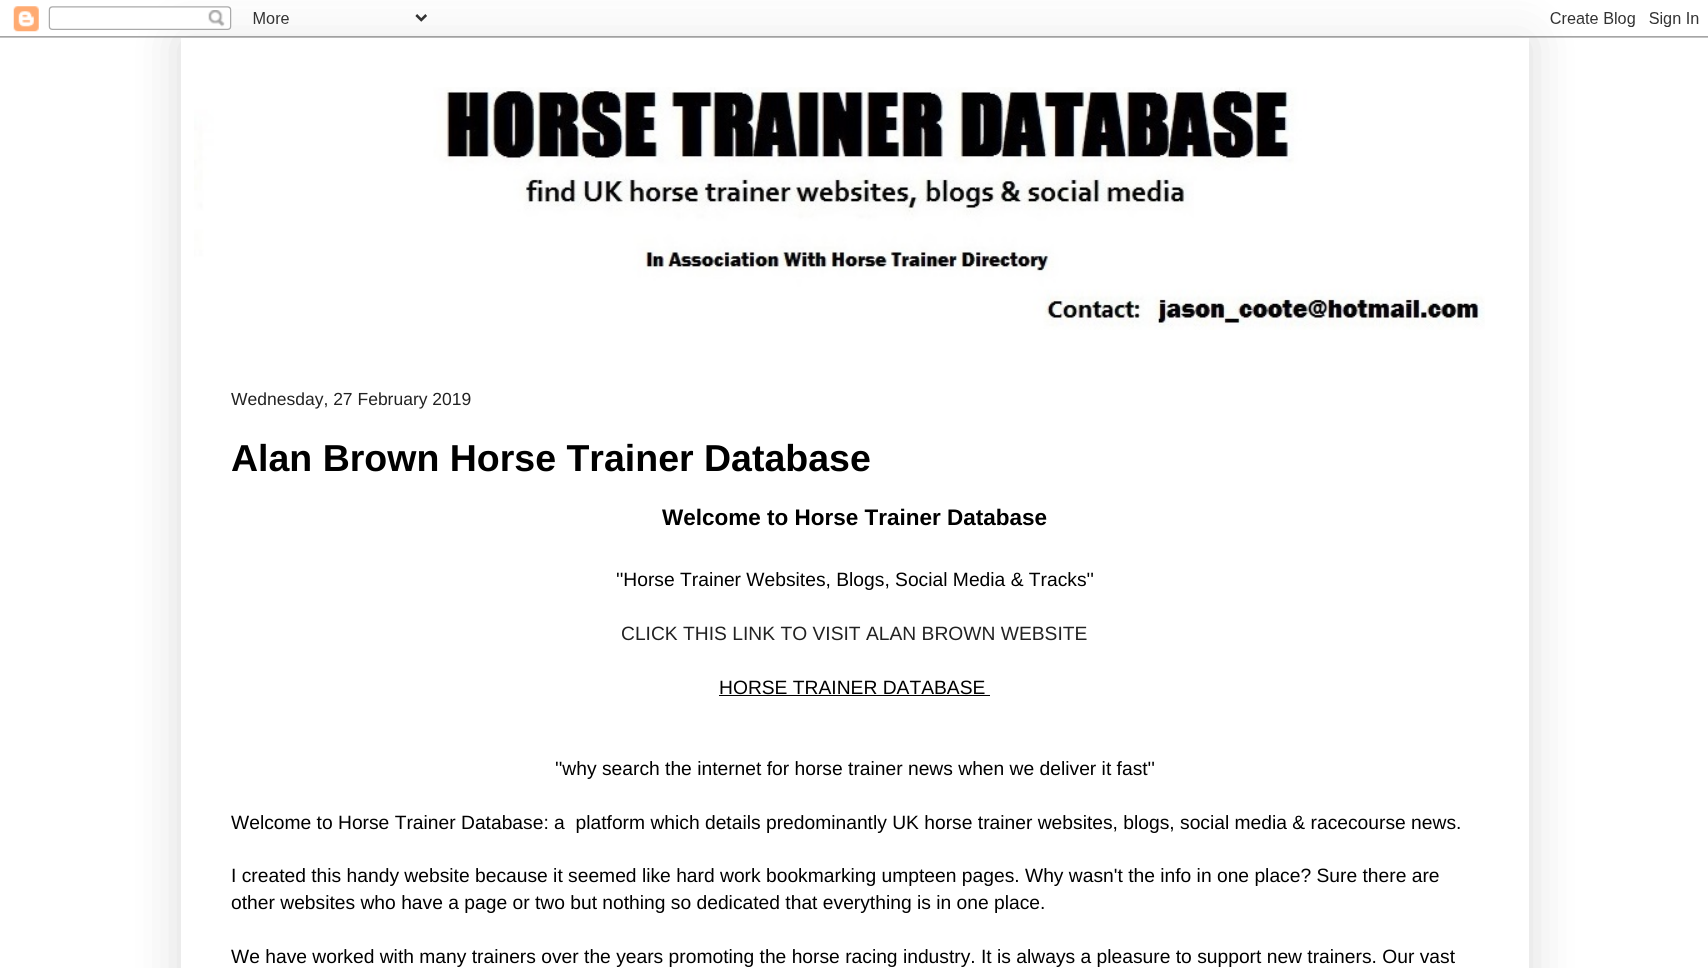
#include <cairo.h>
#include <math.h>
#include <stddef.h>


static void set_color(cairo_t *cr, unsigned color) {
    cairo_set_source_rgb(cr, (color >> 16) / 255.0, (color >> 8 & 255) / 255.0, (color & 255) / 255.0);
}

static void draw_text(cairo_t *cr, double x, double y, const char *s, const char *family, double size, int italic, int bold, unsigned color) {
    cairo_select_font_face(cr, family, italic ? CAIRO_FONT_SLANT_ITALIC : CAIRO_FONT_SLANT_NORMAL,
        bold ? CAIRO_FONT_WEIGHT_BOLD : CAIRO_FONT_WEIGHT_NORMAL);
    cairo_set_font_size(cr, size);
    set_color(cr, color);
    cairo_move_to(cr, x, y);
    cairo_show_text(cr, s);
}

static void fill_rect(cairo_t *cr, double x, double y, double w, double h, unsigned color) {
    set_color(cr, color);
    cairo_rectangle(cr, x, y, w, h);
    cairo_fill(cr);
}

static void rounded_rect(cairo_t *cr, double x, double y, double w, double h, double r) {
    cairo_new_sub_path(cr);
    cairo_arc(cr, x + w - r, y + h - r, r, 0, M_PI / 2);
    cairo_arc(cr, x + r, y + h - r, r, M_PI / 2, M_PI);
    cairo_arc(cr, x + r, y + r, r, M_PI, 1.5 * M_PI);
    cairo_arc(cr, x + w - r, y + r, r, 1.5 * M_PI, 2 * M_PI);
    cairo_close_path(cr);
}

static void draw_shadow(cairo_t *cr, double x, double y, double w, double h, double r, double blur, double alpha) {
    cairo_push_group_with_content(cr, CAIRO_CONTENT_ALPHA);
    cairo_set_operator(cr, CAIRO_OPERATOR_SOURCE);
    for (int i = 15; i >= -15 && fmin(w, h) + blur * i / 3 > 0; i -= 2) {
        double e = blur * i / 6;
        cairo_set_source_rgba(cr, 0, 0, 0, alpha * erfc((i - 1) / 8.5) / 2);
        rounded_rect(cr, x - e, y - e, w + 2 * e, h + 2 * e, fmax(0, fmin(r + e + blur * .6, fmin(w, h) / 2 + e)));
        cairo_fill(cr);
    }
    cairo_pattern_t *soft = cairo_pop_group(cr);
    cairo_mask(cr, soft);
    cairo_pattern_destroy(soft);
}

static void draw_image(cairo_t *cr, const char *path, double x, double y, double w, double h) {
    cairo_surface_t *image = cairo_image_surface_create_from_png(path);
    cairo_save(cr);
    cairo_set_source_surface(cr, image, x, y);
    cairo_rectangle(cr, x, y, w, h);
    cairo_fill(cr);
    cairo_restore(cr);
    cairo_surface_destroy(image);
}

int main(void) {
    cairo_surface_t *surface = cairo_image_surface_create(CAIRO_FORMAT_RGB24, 1708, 968);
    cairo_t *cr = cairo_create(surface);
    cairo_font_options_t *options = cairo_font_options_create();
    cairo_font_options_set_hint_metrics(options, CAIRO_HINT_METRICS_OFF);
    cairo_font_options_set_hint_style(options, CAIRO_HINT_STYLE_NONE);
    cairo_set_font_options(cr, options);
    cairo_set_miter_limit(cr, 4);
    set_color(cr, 0xFFFFFF);
    cairo_paint(cr);
    set_color(cr, 0x000000);
    draw_shadow(cr, 181, 38, 1348, 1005, 0, 25, 0.15);
    draw_image(cr, "assets/img1.png", 0, 6, 1708, 32);
    fill_rect(cr, 181, 38, 1348, 930, 0xFFFFFF);
    draw_image(cr, "assets/img2.png", 194, 87, 1291, 243);
    draw_text(cr, 231, 405, "Wednesday, 27 February 2019", "Liberation Sans", 17.5, 0, 0, 0x222222);
    draw_text(cr, 231, 471, "Alan Brown Horse Trainer Database", "Liberation Sans", 37.5, 0, 1, 0x000000);
    draw_text(cr, 662, 525, "Welcome to Horse Trainer Database", "Liberation Sans", 22.5, 0, 1, 0x000000);
    draw_text(cr, 616, 586, "''Horse Trainer Websites, Blogs, Social Media & Tracks''", "Liberation Sans", 19.25, 0, 0, 0x000000);
    draw_text(cr, 621, 640, "CLICK THIS LINK TO VISIT ALAN BROWN WEBSITE", "Liberation Sans", 19.25, 0, 0, 0x222222);
    draw_text(cr, 719, 694, "HORSE TRAINER DATABASE", "Liberation Sans", 19.25, 0, 0, 0x000000);
    fill_rect(cr, 719, 695, 271, 1, 0x000000);
    draw_text(cr, 555, 775, "''why search the internet for horse trainer news when we deliver it fast''", "Liberation Sans", 19.25, 0, 0, 0x000000);
    draw_text(cr, 231, 829, "Welcome to Horse Trainer Database: a  platform which details predominantly UK horse trainer websites, blogs, social media & racecourse news.", "Liberation Sans", 19.25, 0, 0, 0x000000);
    draw_text(cr, 231, 882, "I created this handy website because it seemed like hard work bookmarking umpteen pages. Why wasn't the info in one place? Sure there are", "Liberation Sans", 19.25, 0, 0, 0x000000);
    draw_text(cr, 231, 909, "other websites who have a page or two but nothing so dedicated that everything is in one place.", "Liberation Sans", 19.25, 0, 0, 0x000000);
    draw_text(cr, 231, 963, "We have worked with many trainers over the years promoting the horse racing industry. It is always a pleasure to support new trainers. Our vast", "Liberation Sans", 19.25, 0, 0, 0x000000);
    cairo_surface_write_to_png(surface, "output.png");
    cairo_font_options_destroy(options);
    cairo_destroy(cr);
    cairo_surface_destroy(surface);
    return 0;
}
